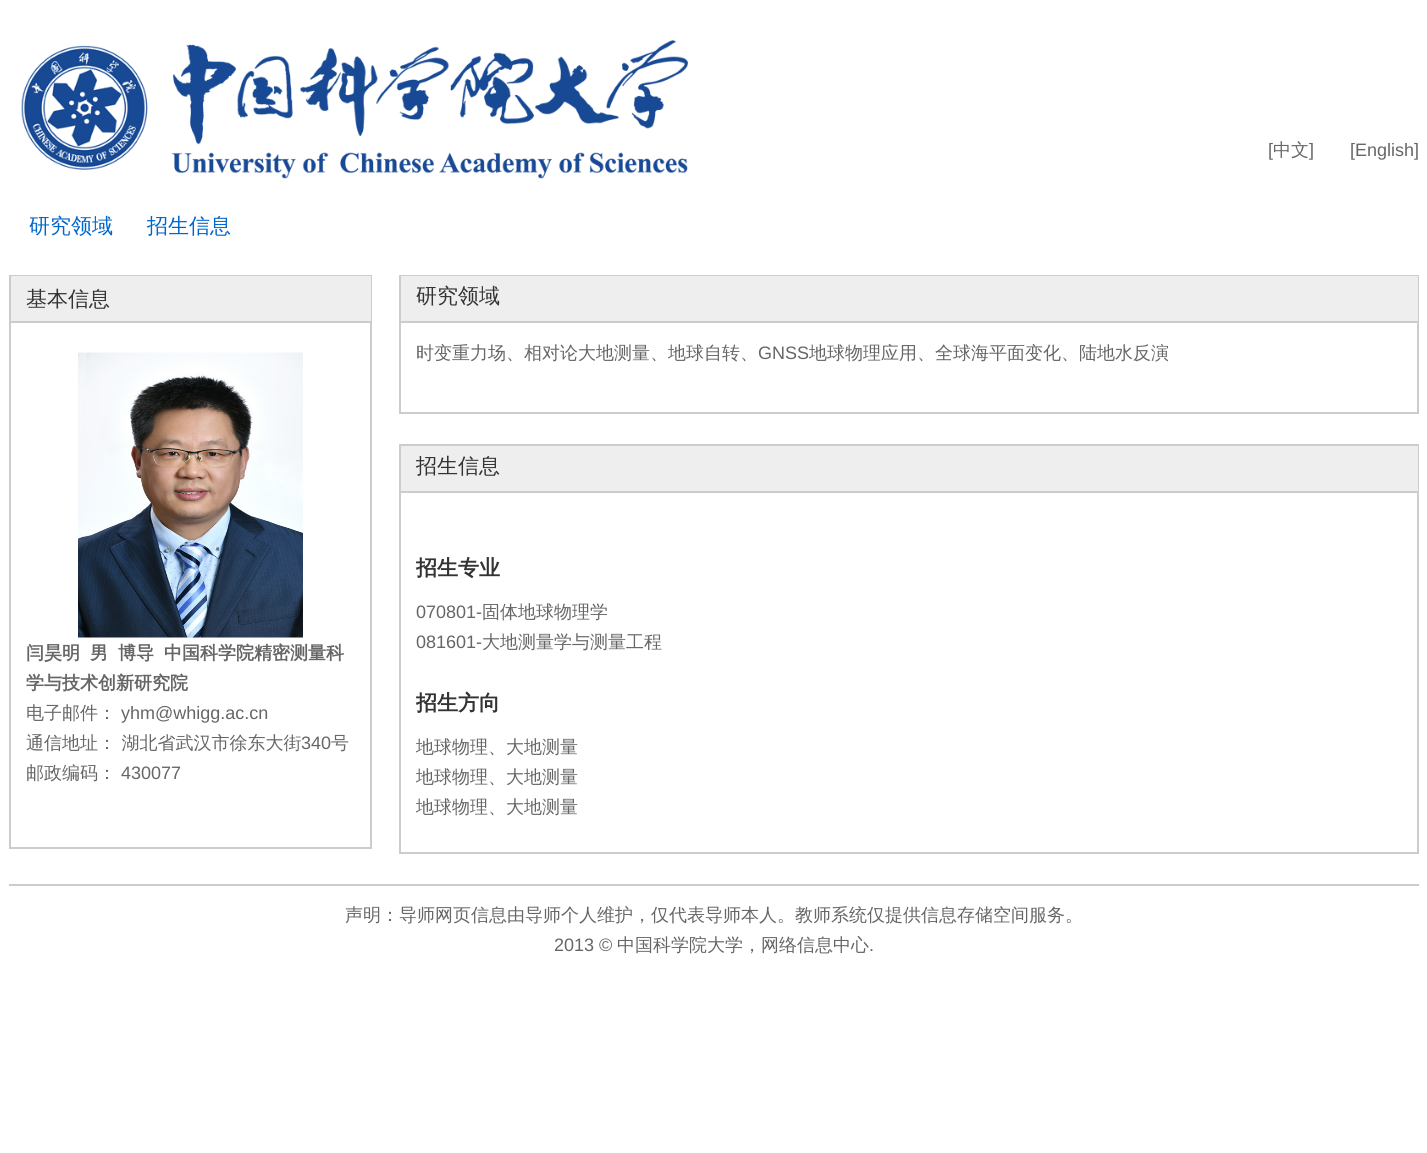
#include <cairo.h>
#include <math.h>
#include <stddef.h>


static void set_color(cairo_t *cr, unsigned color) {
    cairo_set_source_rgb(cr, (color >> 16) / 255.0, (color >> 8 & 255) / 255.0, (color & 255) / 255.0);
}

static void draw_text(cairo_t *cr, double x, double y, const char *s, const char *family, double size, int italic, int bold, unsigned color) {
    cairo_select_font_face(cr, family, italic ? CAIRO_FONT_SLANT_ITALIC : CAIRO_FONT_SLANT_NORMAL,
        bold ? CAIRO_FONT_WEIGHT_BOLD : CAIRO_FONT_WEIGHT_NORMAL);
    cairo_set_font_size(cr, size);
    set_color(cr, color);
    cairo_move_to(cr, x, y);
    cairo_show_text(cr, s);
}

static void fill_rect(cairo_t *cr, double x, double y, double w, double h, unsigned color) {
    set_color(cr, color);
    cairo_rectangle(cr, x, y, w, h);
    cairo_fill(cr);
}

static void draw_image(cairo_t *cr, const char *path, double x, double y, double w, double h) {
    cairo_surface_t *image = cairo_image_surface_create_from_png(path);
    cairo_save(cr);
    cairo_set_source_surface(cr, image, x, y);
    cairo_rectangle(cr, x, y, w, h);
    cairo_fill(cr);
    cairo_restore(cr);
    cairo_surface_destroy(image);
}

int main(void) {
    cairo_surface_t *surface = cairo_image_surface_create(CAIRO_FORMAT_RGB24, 1427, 1153);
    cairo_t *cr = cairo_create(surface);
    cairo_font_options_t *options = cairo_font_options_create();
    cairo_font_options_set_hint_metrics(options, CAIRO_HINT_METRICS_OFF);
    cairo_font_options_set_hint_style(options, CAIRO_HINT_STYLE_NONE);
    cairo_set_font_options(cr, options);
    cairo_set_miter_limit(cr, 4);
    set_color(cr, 0xFFFFFF);
    cairo_paint(cr);
    draw_image(cr, "assets/img1.png", 21, 40, 667, 139);
    draw_text(cr, 1268, 156, "[", "Liberation Sans", 18, 0, 0, 0x666666);
    draw_text(cr, 1273, 156, "中文", "WenQuanYi Zen Hei Medium", 18, 0, 0, 0x666666);
    draw_text(cr, 1309, 156, "]", "Liberation Sans", 18, 0, 0, 0x666666);
    draw_text(cr, 1350, 156, "[English]", "Liberation Sans", 18, 0, 0, 0x666666);
    draw_text(cr, 29, 233, "研究领域", "WenQuanYi Zen Hei Medium", 21, 0, 0, 0x0066CC);
    draw_text(cr, 147, 233, "招生信息", "WenQuanYi Zen Hei Medium", 21, 0, 0, 0x0066CC);
    cairo_rectangle(cr, 10, 276, 361, 572);
    set_color(cr, 0xCCCCCC);
    cairo_stroke(cr);
    fill_rect(cr, 11, 276, 360, 45, 0xEEEEEE);
    fill_rect(cr, 11, 321, 360, 2, 0xCCCCCC);
    draw_text(cr, 26, 306, "基本信息", "WenQuanYi Zen Hei Medium", 21, 0, 0, 0x333333);
    draw_image(cr, "assets/img2.png", 78, 352, 225, 286);
    draw_text(cr, 26, 659, "闫昊明", "WenQuanYi Zen Hei", 18, 0, 1, 0x666666);
    draw_text(cr, 90, 659, "男", "WenQuanYi Zen Hei", 18, 0, 1, 0x666666);
    draw_text(cr, 118, 659, "博导", "WenQuanYi Zen Hei", 18, 0, 1, 0x666666);
    draw_text(cr, 164, 659, "中国科学院精密测量科", "WenQuanYi Zen Hei", 18, 0, 1, 0x666666);
    draw_text(cr, 26, 689, "学与技术创新研究院", "WenQuanYi Zen Hei", 18, 0, 1, 0x666666);
    draw_text(cr, 26, 719, "电子邮件：", "WenQuanYi Zen Hei Medium", 18, 0, 0, 0x666666);
    draw_text(cr, 121, 719, "yhm@whigg.ac.cn", "Liberation Sans", 18, 0, 0, 0x666666);
    draw_text(cr, 26, 749, "通信地址： 湖北省武汉市徐东大街", "WenQuanYi Zen Hei Medium", 18, 0, 0, 0x666666);
    draw_text(cr, 301, 749, "340", "Liberation Sans", 18, 0, 0, 0x666666);
    draw_text(cr, 331, 749, "号", "WenQuanYi Zen Hei Medium", 18, 0, 0, 0x666666);
    draw_text(cr, 26, 779, "邮政编码：", "WenQuanYi Zen Hei Medium", 18, 0, 0, 0x666666);
    draw_text(cr, 121, 779, "430077", "Liberation Sans", 18, 0, 0, 0x666666);
    cairo_rectangle(cr, 400, 276, 1018, 137);
    set_color(cr, 0xCCCCCC);
    cairo_stroke(cr);
    fill_rect(cr, 401, 276, 1017, 45, 0xEEEEEE);
    fill_rect(cr, 401, 321, 1017, 2, 0xCCCCCC);
    draw_text(cr, 416, 303, "研究领域", "WenQuanYi Zen Hei Medium", 21, 0, 0, 0x333333);
    draw_text(cr, 416, 359, "时变重力场、相对论大地测量、地球自转、", "WenQuanYi Zen Hei Medium", 18, 0, 0, 0x666666);
    draw_text(cr, 758, 359, "GNSS", "Liberation Sans", 18, 0, 0, 0x666666);
    draw_text(cr, 809, 359, "地球物理应用、全球海平面变化、陆地水反演", "WenQuanYi Zen Hei Medium", 18, 0, 0, 0x666666);
    cairo_rectangle(cr, 400, 445, 1018, 408);
    set_color(cr, 0xCCCCCC);
    cairo_stroke(cr);
    fill_rect(cr, 401, 446, 1017, 45, 0xEEEEEE);
    fill_rect(cr, 401, 491, 1017, 2, 0xCCCCCC);
    draw_text(cr, 416, 473, "招生信息", "WenQuanYi Zen Hei Medium", 21, 0, 0, 0x333333);
    draw_text(cr, 416, 575, "招生专业", "WenQuanYi Zen Hei", 21, 0, 1, 0x333333);
    draw_text(cr, 416, 618, "070801-", "Liberation Sans", 18, 0, 0, 0x666666);
    draw_text(cr, 482, 618, "固体地球物理学", "WenQuanYi Zen Hei Medium", 18, 0, 0, 0x666666);
    draw_text(cr, 416, 648, "081601-", "Liberation Sans", 18, 0, 0, 0x666666);
    draw_text(cr, 482, 648, "大地测量学与测量工程", "WenQuanYi Zen Hei Medium", 18, 0, 0, 0x666666);
    draw_text(cr, 416, 710, "招生方向", "WenQuanYi Zen Hei", 21, 0, 1, 0x333333);
    draw_text(cr, 416, 753, "地球物理、大地测量", "WenQuanYi Zen Hei Medium", 18, 0, 0, 0x666666);
    draw_text(cr, 416, 783, "地球物理、大地测量", "WenQuanYi Zen Hei Medium", 18, 0, 0, 0x666666);
    draw_text(cr, 416, 813, "地球物理、大地测量", "WenQuanYi Zen Hei Medium", 18, 0, 0, 0x666666);
    fill_rect(cr, 9, 884, 1410, 2, 0xCCCCCC);
    draw_text(cr, 345, 921, "声明：导师网页信息由导师个人维护，仅代表导师本人。教师系统仅提供信息存储空间服务。", "WenQuanYi Zen Hei Medium", 18, 0, 0, 0x666666);
    draw_text(cr, 554, 951, "2013 ©", "Liberation Sans", 18, 0, 0, 0x666666);
    draw_text(cr, 617, 951, "中国科学院大学，网络信息中心", "WenQuanYi Zen Hei Medium", 18, 0, 0, 0x666666);
    draw_text(cr, 869, 951, ".", "Liberation Sans", 18, 0, 0, 0x666666);
    cairo_surface_write_to_png(surface, "output.png");
    cairo_font_options_destroy(options);
    cairo_destroy(cr);
    cairo_surface_destroy(surface);
    return 0;
}
